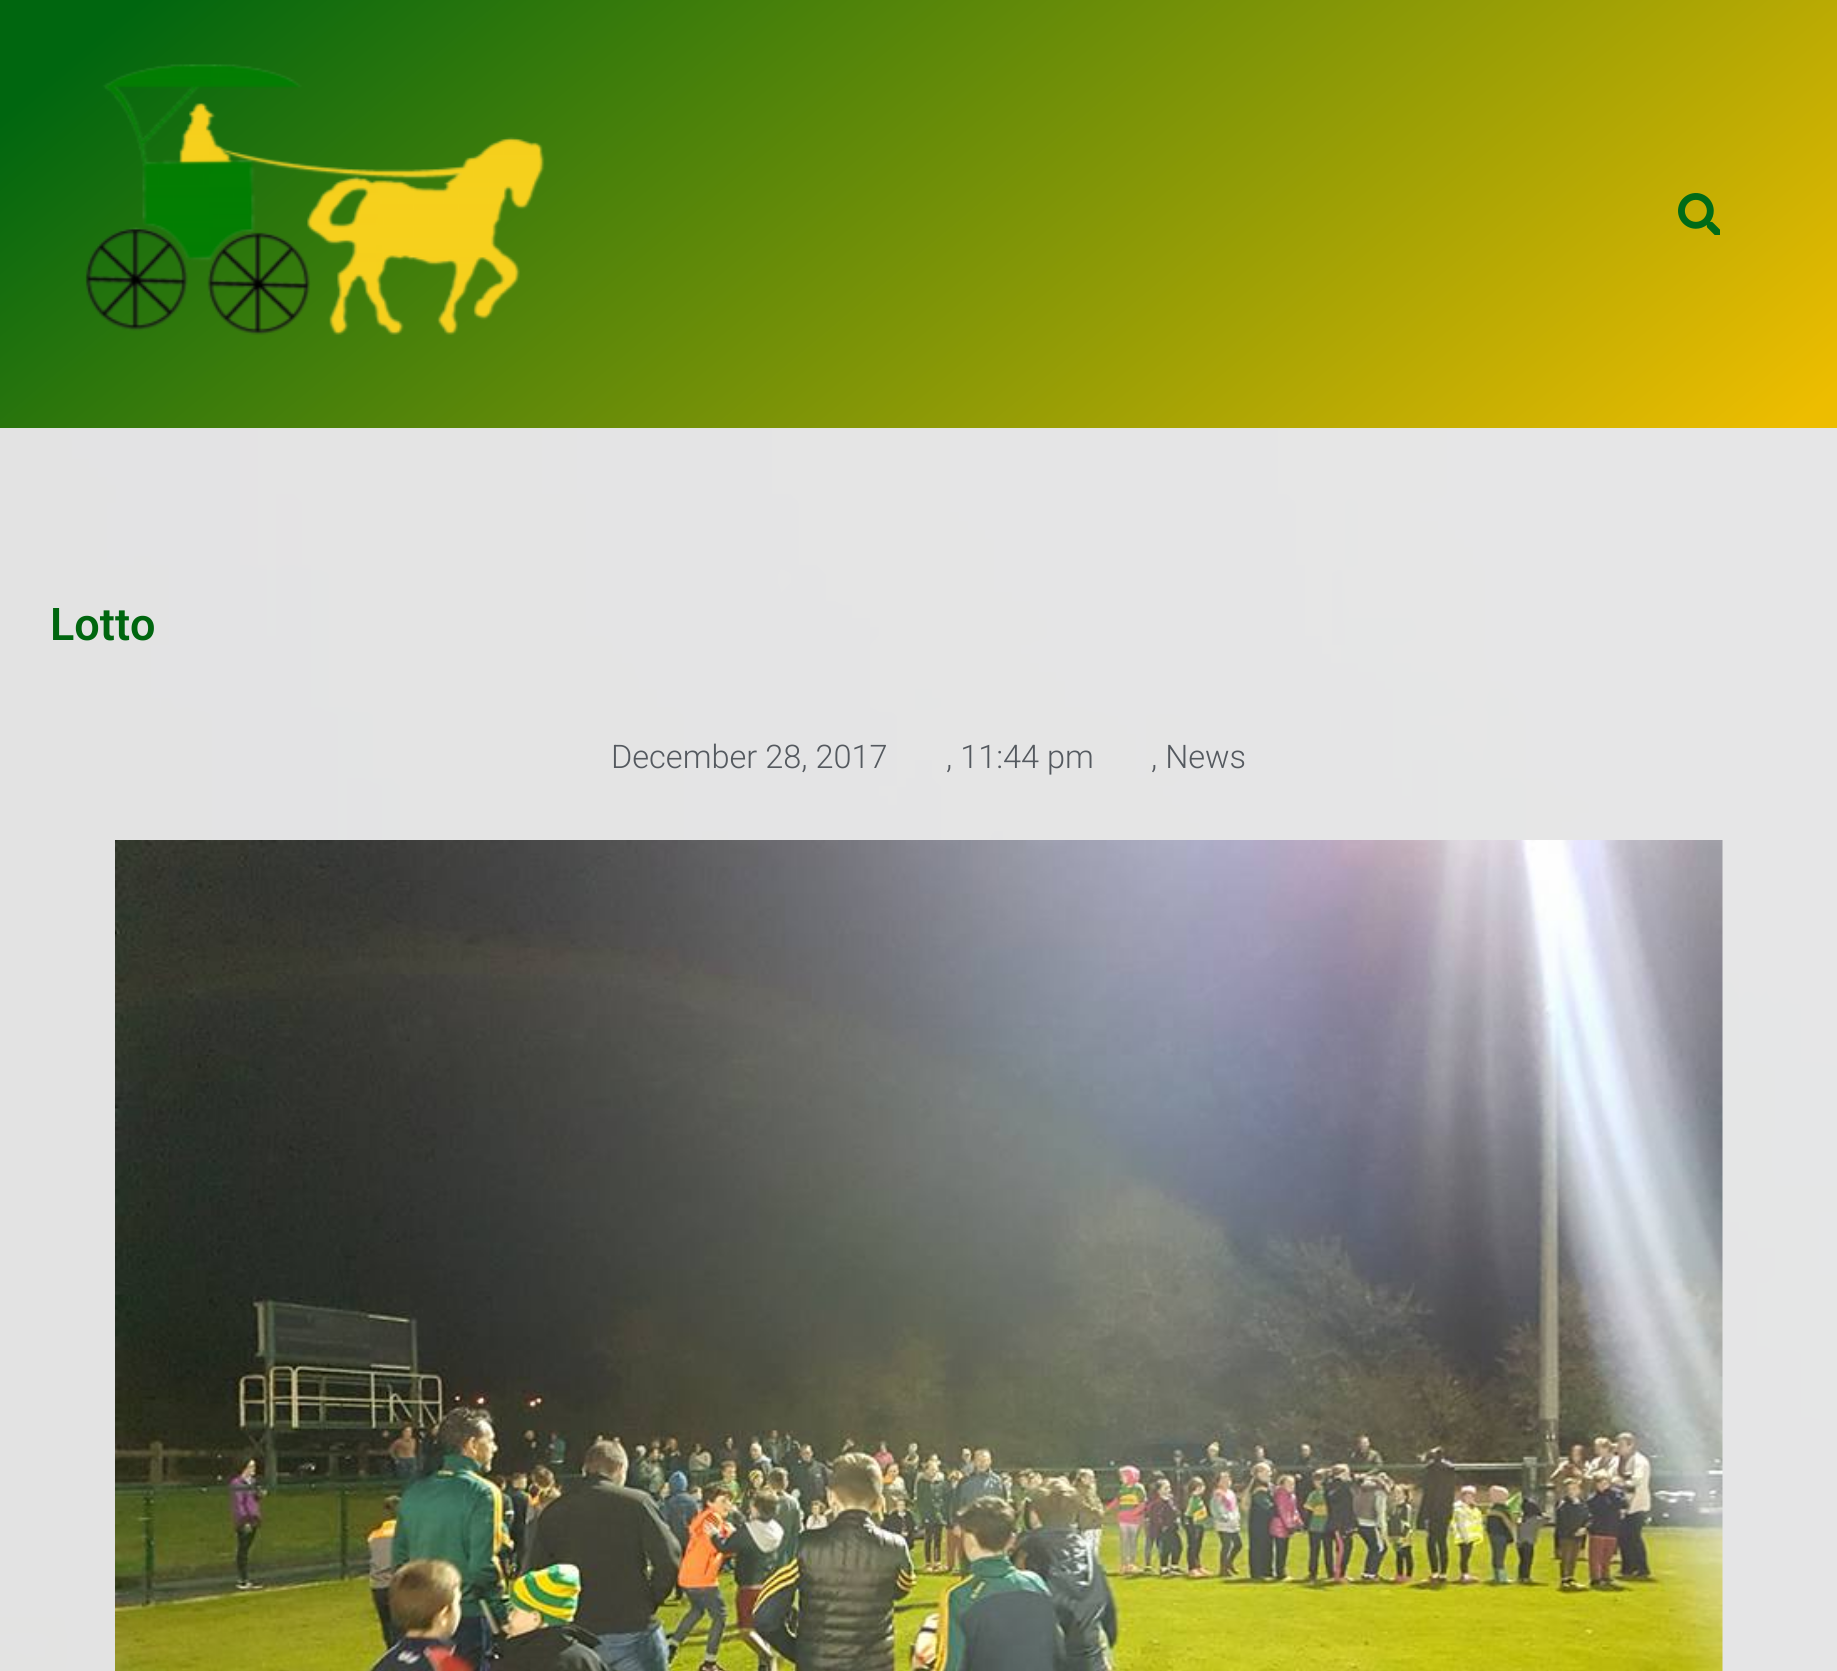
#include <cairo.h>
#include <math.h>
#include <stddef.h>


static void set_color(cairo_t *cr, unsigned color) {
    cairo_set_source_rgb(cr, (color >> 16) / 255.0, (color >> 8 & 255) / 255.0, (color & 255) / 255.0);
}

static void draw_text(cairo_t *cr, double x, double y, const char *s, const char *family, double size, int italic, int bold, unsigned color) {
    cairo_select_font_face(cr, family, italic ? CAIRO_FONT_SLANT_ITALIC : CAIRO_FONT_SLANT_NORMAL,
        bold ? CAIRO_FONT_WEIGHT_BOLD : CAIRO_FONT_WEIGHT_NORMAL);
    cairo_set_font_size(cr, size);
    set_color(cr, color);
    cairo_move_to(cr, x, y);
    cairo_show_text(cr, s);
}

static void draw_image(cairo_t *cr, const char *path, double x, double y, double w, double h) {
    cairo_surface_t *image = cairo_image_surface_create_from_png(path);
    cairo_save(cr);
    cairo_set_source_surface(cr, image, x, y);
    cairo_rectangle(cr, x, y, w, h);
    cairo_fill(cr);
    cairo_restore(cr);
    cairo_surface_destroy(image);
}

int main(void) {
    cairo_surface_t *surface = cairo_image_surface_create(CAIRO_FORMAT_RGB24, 1837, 1671);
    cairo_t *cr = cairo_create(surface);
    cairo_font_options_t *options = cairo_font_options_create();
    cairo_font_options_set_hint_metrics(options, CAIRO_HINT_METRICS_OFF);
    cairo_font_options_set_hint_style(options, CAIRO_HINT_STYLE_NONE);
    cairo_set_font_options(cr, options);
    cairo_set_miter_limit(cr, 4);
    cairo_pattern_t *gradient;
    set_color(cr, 0xEAEAEA);
    cairo_paint(cr);
    gradient = cairo_pattern_create_linear(434, -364, 1404, 792);
    cairo_pattern_add_color_stop_rgba(gradient, 0.06, 0, 0.4, 0.059, 1);
    cairo_pattern_add_color_stop_rgba(gradient, 0.98, 0.929, 0.741, 0, 1);
    cairo_set_source(cr, gradient);
    cairo_pattern_destroy(gradient);
    cairo_rectangle(cr, 0, 0, 1837, 428);
    cairo_fill(cr);
    draw_image(cr, "assets/img1.png", 85, 64, 460, 271);
    draw_image(cr, "assets/img2.png", 1678, 193, 42, 42);
    draw_image(cr, "assets/img3.png", 0, 428, 1837, 1243);
    draw_text(cr, 50, 640, "Lotto", "Roboto SemiBold", 45, 0, 0, 0x00660F);
    draw_text(cr, 611, 768, "December 28, 2017", "Roboto Light", 32.5, 0, 0, 0x54595F);
    draw_text(cr, 946, 768, ", 11:44 pm", "Roboto Light", 32.5, 0, 0, 0x54595F);
    draw_text(cr, 1151, 768, ", News", "Roboto Light", 32.5, 0, 0, 0x54595F);
    draw_image(cr, "assets/img4.png", 115, 840, 1608, 831);
    cairo_surface_write_to_png(surface, "output.png");
    cairo_font_options_destroy(options);
    cairo_destroy(cr);
    cairo_surface_destroy(surface);
    return 0;
}
